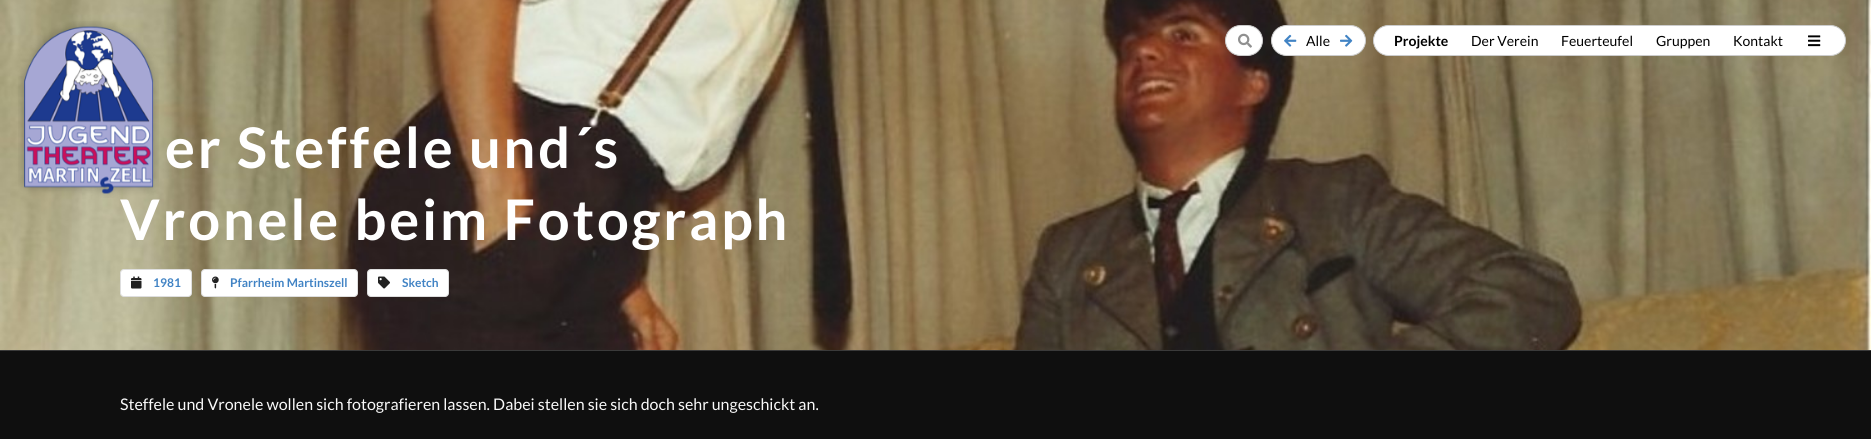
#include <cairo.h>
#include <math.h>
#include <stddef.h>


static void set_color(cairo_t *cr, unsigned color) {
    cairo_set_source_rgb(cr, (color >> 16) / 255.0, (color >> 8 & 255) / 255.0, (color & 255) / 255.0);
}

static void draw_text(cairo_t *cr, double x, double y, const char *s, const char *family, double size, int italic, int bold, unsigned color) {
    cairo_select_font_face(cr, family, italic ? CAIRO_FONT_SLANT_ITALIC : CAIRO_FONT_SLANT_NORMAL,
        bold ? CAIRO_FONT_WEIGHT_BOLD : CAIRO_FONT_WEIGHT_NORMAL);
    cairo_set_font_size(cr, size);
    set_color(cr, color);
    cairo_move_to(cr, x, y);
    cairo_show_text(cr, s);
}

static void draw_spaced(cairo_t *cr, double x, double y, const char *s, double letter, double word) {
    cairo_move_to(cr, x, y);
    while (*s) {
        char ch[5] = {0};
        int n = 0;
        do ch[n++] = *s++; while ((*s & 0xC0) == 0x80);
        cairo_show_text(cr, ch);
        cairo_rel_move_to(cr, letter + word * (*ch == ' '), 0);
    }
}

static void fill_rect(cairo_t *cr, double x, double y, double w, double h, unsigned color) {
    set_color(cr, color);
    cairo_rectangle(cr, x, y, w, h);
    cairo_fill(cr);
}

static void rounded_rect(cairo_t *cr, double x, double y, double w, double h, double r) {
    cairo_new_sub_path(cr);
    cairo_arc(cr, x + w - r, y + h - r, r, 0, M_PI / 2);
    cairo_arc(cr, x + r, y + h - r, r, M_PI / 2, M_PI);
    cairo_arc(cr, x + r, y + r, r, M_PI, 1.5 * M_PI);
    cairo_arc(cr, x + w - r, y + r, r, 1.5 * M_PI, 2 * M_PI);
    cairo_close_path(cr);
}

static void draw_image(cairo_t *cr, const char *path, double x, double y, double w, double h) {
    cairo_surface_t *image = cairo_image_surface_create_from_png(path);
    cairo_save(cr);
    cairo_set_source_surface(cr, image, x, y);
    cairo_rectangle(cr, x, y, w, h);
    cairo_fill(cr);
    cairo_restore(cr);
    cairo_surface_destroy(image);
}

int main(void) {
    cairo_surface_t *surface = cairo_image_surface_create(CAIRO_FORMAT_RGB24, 1871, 439);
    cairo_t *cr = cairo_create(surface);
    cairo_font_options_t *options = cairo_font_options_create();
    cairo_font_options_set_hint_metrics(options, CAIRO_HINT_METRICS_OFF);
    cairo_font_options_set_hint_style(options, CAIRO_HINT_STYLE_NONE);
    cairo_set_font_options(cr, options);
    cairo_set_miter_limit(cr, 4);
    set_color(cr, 0x0F0F0F);
    cairo_paint(cr);
    draw_image(cr, "assets/img6.png", 0, 0, 1871, 350);
    draw_image(cr, "assets/img1.png", 18, 21, 141, 177);
    set_color(cr, 0xFFFFFF);
    rounded_rect(cr, 1225.5, 25.5, 37, 30, 15);
    cairo_fill_preserve(cr);
    set_color(cr, 0xCCCCCC);
    cairo_set_line_width(cr, 1);
    cairo_stroke(cr);
    draw_image(cr, "assets/img2.png", 1238, 33, 14, 15);
    set_color(cr, 0xFFFFFF);
    rounded_rect(cr, 1271.5, 25.5, 94, 30, 15);
    cairo_fill_preserve(cr);
    set_color(cr, 0xCCCCCC);
    cairo_stroke(cr);
    draw_image(cr, "assets/img3.png", 1284, 34, 13, 13);
    draw_text(cr, 1306, 46, "Alle", "Lato", 14, 0, 0, 0x000000);
    draw_image(cr, "assets/img4.png", 1340, 34, 13, 13);
    set_color(cr, 0xFFFFFF);
    rounded_rect(cr, 1373.5, 25.5, 472, 30, 15);
    cairo_fill_preserve(cr);
    set_color(cr, 0xCCCCCC);
    cairo_stroke(cr);
    draw_text(cr, 1394, 46, "Projekte", "Lato", 14, 0, 1, 0x000000);
    draw_text(cr, 1471, 46, "Der Verein", "Lato", 14, 0, 0, 0x000000);
    draw_text(cr, 1561, 46, "Feuerteufel", "Lato", 14, 0, 0, 0x000000);
    draw_text(cr, 1656, 46, "Gruppen", "Lato", 14, 0, 0, 0x000000);
    draw_text(cr, 1733, 46, "Kontakt", "Lato", 14, 0, 0, 0x000000);
    draw_image(cr, "assets/img5.png", 1808, 35, 13, 12);
    fill_rect(cr, 0, 350, 1871, 1, 0x3A3A3A);
    cairo_select_font_face(cr, "Lato", CAIRO_FONT_SLANT_NORMAL, CAIRO_FONT_WEIGHT_BOLD);
    cairo_set_font_size(cr, 56);
    set_color(cr, 0xFFFFFF);
    draw_spaced(cr, 165, 168, "er Steffele und´s", 2.8, 0);
    draw_spaced(cr, 120, 240, "Vronele beim Fotograph", 2.8, 0);
    rounded_rect(cr, 120, 269, 72, 28, 4);
    cairo_fill(cr);
    rounded_rect(cr, 120.5, 269.5, 71, 27, 3.5);
    cairo_set_source_rgba(cr, 0.133, 0.141, 0.149, 0.15);
    cairo_stroke(cr);
    draw_image(cr, "assets/img7.png", 131, 276, 11, 13);
    draw_text(cr, 153, 287, "1981", "Lato", 12, 0, 1, 0x4183C4);
    set_color(cr, 0xFFFFFF);
    rounded_rect(cr, 201, 269, 157, 28, 4);
    cairo_fill(cr);
    rounded_rect(cr, 201.5, 269.5, 156, 27, 3.5);
    cairo_set_source_rgba(cr, 0.133, 0.141, 0.149, 0.15);
    cairo_stroke(cr);
    draw_image(cr, "assets/img8.png", 212, 276, 7, 13);
    draw_text(cr, 230, 287, "Pfarrheim Martinszell", "Lato", 12, 0, 1, 0x4183C4);
    set_color(cr, 0xFFFFFF);
    rounded_rect(cr, 367, 269, 82, 28, 4);
    cairo_fill(cr);
    rounded_rect(cr, 367.5, 269.5, 81, 27, 3.5);
    cairo_set_source_rgba(cr, 0.133, 0.141, 0.149, 0.15);
    cairo_stroke(cr);
    draw_image(cr, "assets/img9.png", 378, 276, 12, 13);
    draw_text(cr, 402, 287, "Sketch", "Lato", 12, 0, 1, 0x4183C4);
    draw_text(cr, 120, 410, "Steffele und Vronele wollen sich fotografieren lassen. Dabei stellen sie sich doch sehr ungeschickt an.", "Lato", 16, 0, 0, 0xF9F9F9);
    cairo_surface_write_to_png(surface, "output.png");
    cairo_font_options_destroy(options);
    cairo_destroy(cr);
    cairo_surface_destroy(surface);
    return 0;
}
